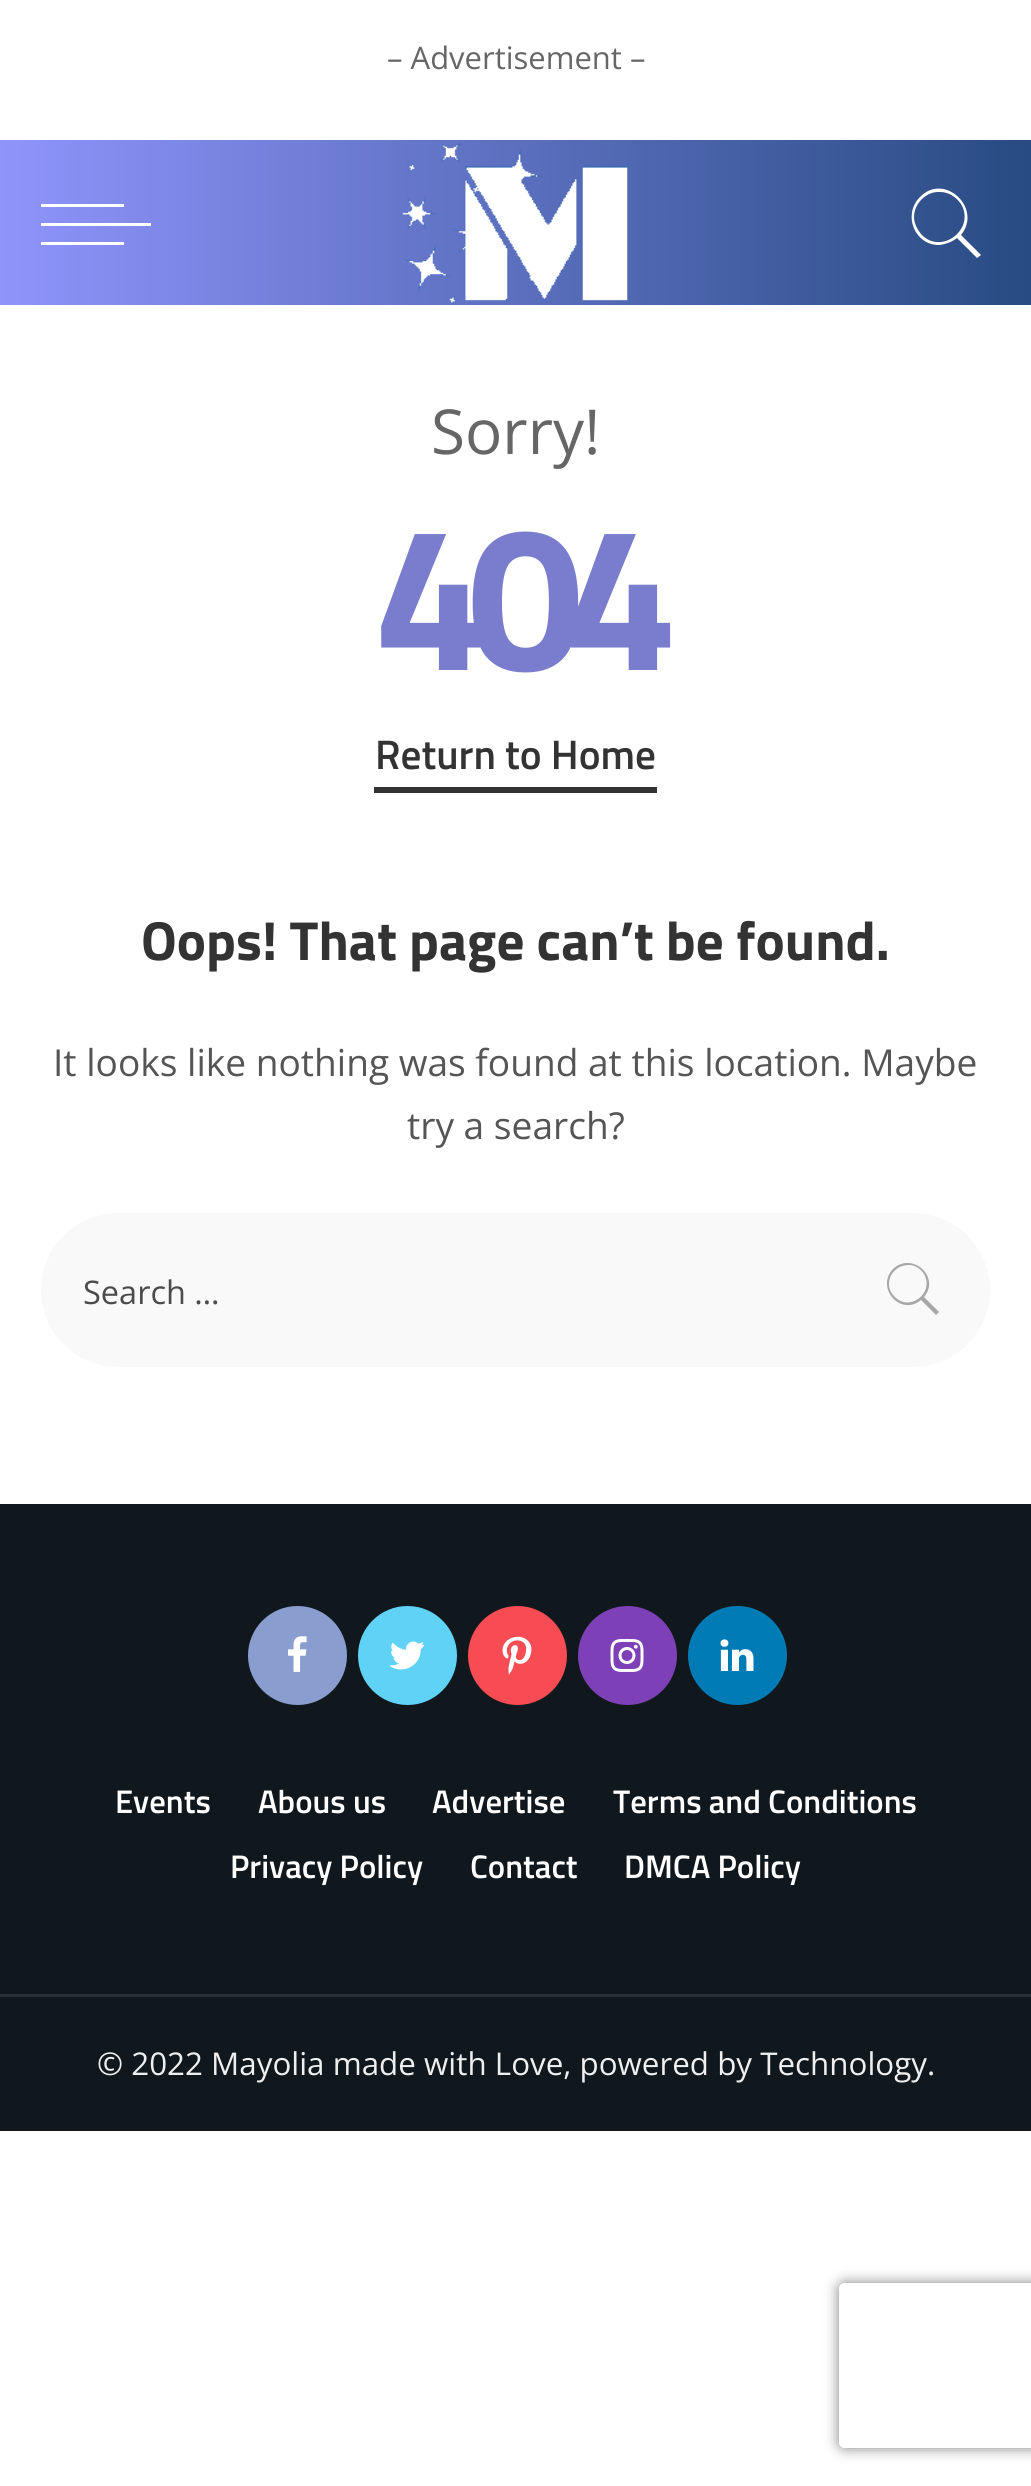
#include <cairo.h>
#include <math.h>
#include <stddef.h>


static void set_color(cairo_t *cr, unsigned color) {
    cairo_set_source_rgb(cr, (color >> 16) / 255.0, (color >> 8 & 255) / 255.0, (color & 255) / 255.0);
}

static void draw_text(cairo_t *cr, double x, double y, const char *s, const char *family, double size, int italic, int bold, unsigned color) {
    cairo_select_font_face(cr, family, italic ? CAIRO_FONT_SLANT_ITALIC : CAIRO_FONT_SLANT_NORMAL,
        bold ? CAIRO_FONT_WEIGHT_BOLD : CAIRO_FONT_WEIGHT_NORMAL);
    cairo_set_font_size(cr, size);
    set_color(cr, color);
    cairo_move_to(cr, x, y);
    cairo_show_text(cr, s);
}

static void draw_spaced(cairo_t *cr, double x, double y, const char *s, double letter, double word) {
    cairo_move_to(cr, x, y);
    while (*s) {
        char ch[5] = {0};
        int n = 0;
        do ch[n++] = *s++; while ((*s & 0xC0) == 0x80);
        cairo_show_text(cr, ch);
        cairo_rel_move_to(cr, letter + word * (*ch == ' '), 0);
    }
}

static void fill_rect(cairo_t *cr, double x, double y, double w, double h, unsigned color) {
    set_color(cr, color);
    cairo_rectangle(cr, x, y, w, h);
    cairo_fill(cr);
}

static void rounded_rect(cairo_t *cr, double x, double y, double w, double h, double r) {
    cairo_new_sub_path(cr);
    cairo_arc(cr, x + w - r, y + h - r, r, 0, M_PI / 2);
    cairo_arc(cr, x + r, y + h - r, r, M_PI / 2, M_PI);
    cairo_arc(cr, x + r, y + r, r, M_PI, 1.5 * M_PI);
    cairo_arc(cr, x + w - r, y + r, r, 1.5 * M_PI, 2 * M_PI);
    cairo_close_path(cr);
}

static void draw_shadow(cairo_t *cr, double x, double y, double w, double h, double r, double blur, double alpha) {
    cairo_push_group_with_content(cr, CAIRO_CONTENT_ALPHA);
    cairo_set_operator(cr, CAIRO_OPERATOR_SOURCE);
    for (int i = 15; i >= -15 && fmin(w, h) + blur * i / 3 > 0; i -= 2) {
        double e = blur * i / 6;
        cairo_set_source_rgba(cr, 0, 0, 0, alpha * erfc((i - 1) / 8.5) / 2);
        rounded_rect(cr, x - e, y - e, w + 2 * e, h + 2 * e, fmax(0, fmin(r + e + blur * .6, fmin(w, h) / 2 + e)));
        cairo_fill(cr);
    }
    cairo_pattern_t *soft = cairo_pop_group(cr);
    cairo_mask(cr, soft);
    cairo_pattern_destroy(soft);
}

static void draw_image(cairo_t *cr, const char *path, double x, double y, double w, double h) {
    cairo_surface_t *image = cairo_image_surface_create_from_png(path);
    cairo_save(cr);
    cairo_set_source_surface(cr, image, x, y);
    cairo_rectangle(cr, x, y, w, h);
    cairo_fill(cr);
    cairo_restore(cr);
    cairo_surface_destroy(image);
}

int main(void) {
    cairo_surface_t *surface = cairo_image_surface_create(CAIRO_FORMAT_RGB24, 1031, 2486);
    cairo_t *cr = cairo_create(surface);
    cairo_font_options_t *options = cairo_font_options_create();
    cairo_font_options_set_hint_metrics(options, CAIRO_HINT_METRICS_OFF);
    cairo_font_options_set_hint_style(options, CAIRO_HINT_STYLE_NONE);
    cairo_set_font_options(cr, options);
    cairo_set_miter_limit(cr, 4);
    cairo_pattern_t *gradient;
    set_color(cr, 0xFFFFFF);
    cairo_paint(cr);
    draw_text(cr, 387, 69, "– Advertisement –", "Open Sans", 31, 0, 0, 0x666666);
    gradient = cairo_pattern_create_linear(0, 223, 1031, 223);
    cairo_pattern_add_color_stop_rgba(gradient, 0, 0.561, 0.58, 0.984, 1);
    cairo_pattern_add_color_stop_rgba(gradient, 1, 0.157, 0.294, 0.51, 1);
    cairo_set_source(cr, gradient);
    cairo_pattern_destroy(gradient);
    cairo_rectangle(cr, 0, 140, 1031, 165);
    cairo_fill(cr);
    fill_rect(cr, 41, 223, 110, 3, 0xFFFFFF);
    fill_rect(cr, 41, 204, 83, 3, 0xFFFFFF);
    fill_rect(cr, 41, 242, 83, 3, 0xFFFFFF);
    draw_image(cr, "assets/img1.png", 401, 143, 227, 162);
    cairo_new_path(cr);
    cairo_move_to(cr, 981, 255);
    cairo_line_to(cr, 961, 235);
    cairo_curve_to(cr, 983, 208, 944, 172, 920, 197);
    cairo_curve_to(cr, 902, 215, 915, 246, 940, 245);
    cairo_curve_to(cr, 946, 244, 952, 242, 957, 238);
    cairo_line_to(cr, 977, 258);
    cairo_close_path(cr);
    cairo_move_to(cr, 914, 217);
    cairo_curve_to(cr, 914, 203, 927, 191, 940, 192);
    cairo_curve_to(cr, 949, 192, 956, 197, 961, 204);
    cairo_curve_to(cr, 976, 229, 941, 256, 921, 234);
    cairo_curve_to(cr, 917, 229, 914, 223, 914, 217);
    cairo_close_path(cr);
    cairo_fill(cr);
    draw_text(cr, 431, 454, "Sorry!", "Open Sans", 62, 0, 0, 0x666666);
    cairo_select_font_face(cr, "Titillium Web", CAIRO_FONT_SLANT_NORMAL, CAIRO_FONT_WEIGHT_BOLD);
    cairo_set_font_size(cr, 206);
    set_color(cr, 0x7A7DCE);
    draw_spaced(cr, 373, 670, "404", -20.5, 0);
    fill_rect(cr, 374, 787, 283, 6, 0x333333);
    draw_text(cr, 375, 769, "Return to Home", "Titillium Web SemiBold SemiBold", 41.25, 0, 0, 0x333333);
    draw_text(cr, 141, 960, "Oops! That page can’t be found.", "Titillium Web", 55, 0, 1, 0x333333);
    draw_text(cr, 53, 1076, "It looks like nothing was found at this location. Maybe", "Open Sans", 37.1, 0, 0, 0x555555);
    draw_text(cr, 407, 1139, "try a search?", "Open Sans", 37.1, 0, 0, 0x555555);
    set_color(cr, 0xF9F9F9);
    rounded_rect(cr, 41, 1213, 949, 154, 77);
    cairo_fill(cr);
    draw_text(cr, 83, 1304, "Search …", "Open Sans", 32.5, 0, 0, 0x4B4B4B);
    set_color(cr, 0xA7A7A7);
    cairo_new_path(cr);
    cairo_move_to(cr, 939, 1312);
    cairo_line_to(cr, 924, 1297);
    cairo_curve_to(cr, 941, 1277, 912, 1251, 893, 1269);
    cairo_curve_to(cr, 875, 1288, 901, 1317, 921, 1300);
    cairo_line_to(cr, 936, 1315);
    cairo_close_path(cr);
    cairo_move_to(cr, 889, 1284);
    cairo_curve_to(cr, 889, 1273, 898, 1265, 909, 1265);
    cairo_curve_to(cr, 915, 1265, 921, 1269, 924, 1274);
    cairo_curve_to(cr, 935, 1293, 909, 1313, 894, 1296);
    cairo_curve_to(cr, 891, 1293, 889, 1289, 889, 1284);
    cairo_close_path(cr);
    cairo_fill(cr);
    fill_rect(cr, 0, 1504, 1031, 627, 0x10181E);
    set_color(cr, 0x899DCE);
    cairo_arc(cr, 297.5, 1655.5, 49.5, 0, 2 * M_PI);
    cairo_fill(cr);
    draw_image(cr, "assets/img2.png", 288, 1636, 19, 36);
    set_color(cr, 0x60D2F5);
    cairo_arc(cr, 407.5, 1655.5, 49.5, 0, 2 * M_PI);
    cairo_fill(cr);
    draw_image(cr, "assets/img3.png", 389, 1641, 36, 29);
    set_color(cr, 0xF74C53);
    cairo_arc(cr, 517.5, 1655.5, 49.5, 0, 2 * M_PI);
    cairo_fill(cr);
    draw_image(cr, "assets/img4.png", 502, 1636, 30, 39);
    set_color(cr, 0x7E40B6);
    cairo_arc(cr, 627.5, 1655.5, 49.5, 0, 2 * M_PI);
    cairo_fill(cr);
    draw_image(cr, "assets/img5.png", 610, 1639, 34, 33);
    set_color(cr, 0x007BB6);
    cairo_arc(cr, 737.5, 1655.5, 49.5, 0, 2 * M_PI);
    cairo_fill(cr);
    draw_image(cr, "assets/img6.png", 720, 1639, 34, 32);
    draw_text(cr, 115, 1813, "Events", "Titillium Web SemiBold SemiBold", 32.75, 0, 0, 0xFFFFFF);
    draw_text(cr, 258, 1813, "Abous us", "Titillium Web SemiBold SemiBold", 32.75, 0, 0, 0xFFFFFF);
    draw_text(cr, 432, 1813, "Advertise", "Titillium Web SemiBold SemiBold", 32.75, 0, 0, 0xFFFFFF);
    draw_text(cr, 613, 1813, "Terms and Conditions", "Titillium Web SemiBold SemiBold", 32.75, 0, 0, 0xFFFFFF);
    draw_text(cr, 230, 1878, "Privacy Policy", "Titillium Web SemiBold SemiBold", 32.75, 0, 0, 0xFFFFFF);
    draw_text(cr, 470, 1878, "Contact", "Titillium Web SemiBold SemiBold", 32.75, 0, 0, 0xFFFFFF);
    draw_text(cr, 624, 1878, "DMCA Policy", "Titillium Web SemiBold SemiBold", 32.75, 0, 0, 0xFFFFFF);
    fill_rect(cr, 0, 1994, 1031, 3, 0x282F35);
    draw_text(cr, 97, 2075, "© 2022 Mayolia made with Love, powered by Technology.", "Open Sans", 31.35, 0, 0, 0xEFEFEF);
    cairo_save(cr);
    cairo_set_fill_rule(cr, CAIRO_FILL_RULE_EVEN_ODD);
    cairo_new_path(cr);
    cairo_move_to(cr, 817, 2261);
    cairo_line_to(cr, 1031, 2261);
    cairo_line_to(cr, 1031, 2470);
    cairo_line_to(cr, 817, 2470);
    cairo_close_path(cr);
    cairo_move_to(cr, 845, 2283);
    cairo_line_to(cr, 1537, 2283);
    cairo_curve_to(cr, 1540.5, 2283, 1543, 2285.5, 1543, 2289);
    cairo_line_to(cr, 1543, 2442);
    cairo_curve_to(cr, 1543, 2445.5, 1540.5, 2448, 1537, 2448);
    cairo_line_to(cr, 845, 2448);
    cairo_curve_to(cr, 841.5, 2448, 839, 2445.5, 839, 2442);
    cairo_line_to(cr, 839, 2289);
    cairo_curve_to(cr, 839, 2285.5, 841.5, 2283, 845, 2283);
    cairo_close_path(cr);
    cairo_clip(cr);
    set_color(cr, 0x808080);
    draw_shadow(cr, 839, 2283, 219, 165, 6, 7, 1);
    cairo_restore(cr);
    cairo_surface_write_to_png(surface, "output.png");
    cairo_font_options_destroy(options);
    cairo_destroy(cr);
    cairo_surface_destroy(surface);
    return 0;
}
